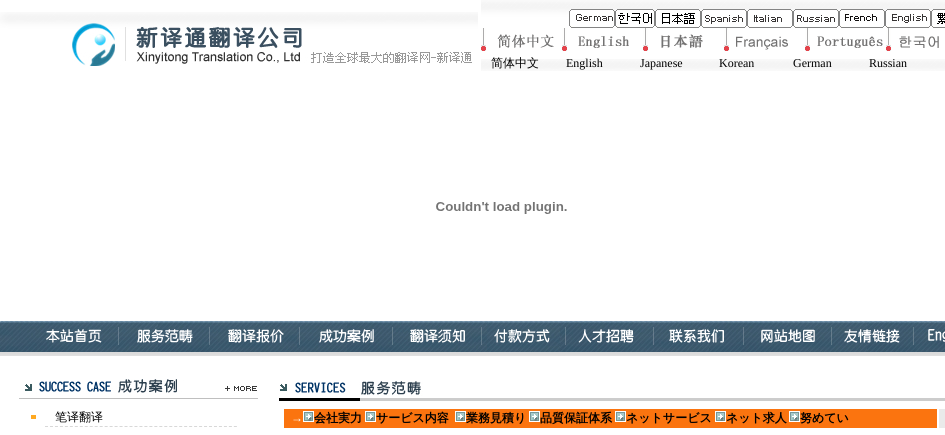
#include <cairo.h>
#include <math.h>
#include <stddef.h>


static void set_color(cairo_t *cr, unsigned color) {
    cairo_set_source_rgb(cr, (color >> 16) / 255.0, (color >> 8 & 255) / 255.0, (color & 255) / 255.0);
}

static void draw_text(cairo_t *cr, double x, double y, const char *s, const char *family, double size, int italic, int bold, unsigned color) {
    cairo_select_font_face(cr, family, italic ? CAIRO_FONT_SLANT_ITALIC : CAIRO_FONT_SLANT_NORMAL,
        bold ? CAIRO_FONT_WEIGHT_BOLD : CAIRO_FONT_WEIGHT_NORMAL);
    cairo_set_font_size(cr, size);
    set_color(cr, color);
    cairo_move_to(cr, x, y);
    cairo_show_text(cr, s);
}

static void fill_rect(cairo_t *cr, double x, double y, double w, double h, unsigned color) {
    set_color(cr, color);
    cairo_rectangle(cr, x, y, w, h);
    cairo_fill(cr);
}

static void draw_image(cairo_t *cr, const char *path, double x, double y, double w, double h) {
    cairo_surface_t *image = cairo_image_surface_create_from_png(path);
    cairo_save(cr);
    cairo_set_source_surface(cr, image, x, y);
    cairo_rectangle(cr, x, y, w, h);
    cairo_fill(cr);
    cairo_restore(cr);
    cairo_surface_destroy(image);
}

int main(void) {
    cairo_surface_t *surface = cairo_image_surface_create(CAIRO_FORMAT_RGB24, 945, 435);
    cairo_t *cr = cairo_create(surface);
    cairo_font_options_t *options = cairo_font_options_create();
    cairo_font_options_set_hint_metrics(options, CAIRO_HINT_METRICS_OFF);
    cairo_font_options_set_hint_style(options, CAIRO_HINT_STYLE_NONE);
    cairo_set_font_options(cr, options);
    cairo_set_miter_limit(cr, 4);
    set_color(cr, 0xFFFFFF);
    cairo_paint(cr);
    draw_image(cr, "assets/img1.png", 0, 12, 130, 54);
    draw_image(cr, "assets/img2.png", 130, 12, 348, 52);
    draw_image(cr, "assets/img3.png", 481, 0, 464, 71);
    draw_image(cr, "assets/img4.png", 569, 9, 46, 19);
    draw_image(cr, "assets/img5.png", 615, 9, 40, 19);
    draw_image(cr, "assets/img6.png", 655, 9, 46, 19);
    draw_image(cr, "assets/img7.png", 701, 9, 46, 19);
    draw_image(cr, "assets/img8.png", 747, 9, 46, 19);
    draw_image(cr, "assets/img9.png", 793, 9, 46, 19);
    draw_image(cr, "assets/img10.png", 839, 9, 46, 19);
    draw_image(cr, "assets/img11.png", 885, 9, 46, 19);
    draw_image(cr, "assets/img12.png", 931, 9, 14, 19);
    draw_image(cr, "assets/img13.png", 481, 28, 73, 23);
    draw_image(cr, "assets/img14.png", 562, 28, 67, 23);
    draw_image(cr, "assets/img15.png", 643, 28, 60, 23);
    draw_image(cr, "assets/img16.png", 724, 28, 64, 23);
    draw_image(cr, "assets/img17.png", 805, 28, 78, 23);
    draw_image(cr, "assets/img18.png", 886, 28, 53, 23);
    draw_text(cr, 491, 67, "简体中文", "WenQuanYi Zen Hei Medium", 12, 0, 0, 0x000000);
    draw_text(cr, 566, 67, "English", "Liberation Serif", 12, 0, 0, 0x000000);
    draw_text(cr, 640, 67, "Japanese", "Liberation Serif", 12, 0, 0, 0x000000);
    draw_text(cr, 719, 67, "Korean", "Liberation Serif", 12, 0, 0, 0x000000);
    draw_text(cr, 793, 67, "German", "Liberation Serif", 12, 0, 0, 0x000000);
    draw_text(cr, 869, 67, "Russian", "Liberation Serif", 12, 0, 0, 0x000000);
    draw_image(cr, "assets/img19.png", 436, 202, 131, 12);
    draw_image(cr, "assets/img20.png", 0, 321, 118, 35);
    draw_image(cr, "assets/img21.png", 118, 321, 91, 35);
    draw_image(cr, "assets/img22.png", 209, 321, 90, 35);
    draw_image(cr, "assets/img23.png", 299, 321, 93, 35);
    draw_image(cr, "assets/img24.png", 392, 321, 94, 35);
    draw_image(cr, "assets/img25.png", 486, 321, 79, 35);
    draw_image(cr, "assets/img26.png", 565, 321, 89, 35);
    draw_image(cr, "assets/img27.png", 654, 321, 90, 35);
    draw_image(cr, "assets/img28.png", 744, 321, 87, 35);
    draw_image(cr, "assets/img29.png", 831, 321, 83, 35);
    draw_image(cr, "assets/img30.png", 914, 321, 31, 35);
    draw_image(cr, "assets/img31.png", 19, 379, 239, 20);
    cairo_new_path(cr);
    cairo_move_to(cr, 45, 426.5);
    cairo_line_to(cr, 237, 426.5);
    set_color(cr, 0xD8D8D8);
    cairo_set_line_width(cr, 1);
    cairo_set_dash(cr, (double[]){3, 1.97}, 2, 0);
    cairo_stroke(cr);
    fill_rect(cr, 31, 415, 5, 4, 0xFFA921);
    draw_text(cr, 55, 421, "笔译翻译", "WenQuanYi Zen Hei Medium", 12, 0, 0, 0x000000);
    draw_image(cr, "assets/img32.png", 279, 381, 666, 20);
    fill_rect(cr, 284, 409, 653, 19, 0xFB740F);
    draw_text(cr, 291, 422, "→", "Liberation Serif", 12, 0, 1, 0xFFFFFF);
    draw_image(cr, "assets/img33.png", 303, 411, 11, 11);
    draw_text(cr, 314, 422, "会社実力", "WenQuanYi Zen Hei", 12, 0, 1, 0x000000);
    draw_image(cr, "assets/img33.png", 365, 411, 11, 11);
    draw_text(cr, 376, 422, "サービス内容", "WenQuanYi Zen Hei", 12, 0, 1, 0x000000);
    draw_image(cr, "assets/img33.png", 455, 411, 11, 11);
    draw_text(cr, 466, 422, "業務見積り", "WenQuanYi Zen Hei", 12, 0, 1, 0x000000);
    draw_image(cr, "assets/img33.png", 529, 411, 11, 11);
    draw_text(cr, 540, 422, "品質保証体系", "WenQuanYi Zen Hei", 12, 0, 1, 0x000000);
    draw_image(cr, "assets/img33.png", 615, 411, 11, 11);
    draw_text(cr, 626, 422, "ネットサービス", "WenQuanYi Zen Hei", 12, 0, 1, 0x000000);
    draw_image(cr, "assets/img33.png", 715, 411, 11, 11);
    draw_text(cr, 726, 422, "ネット求人", "WenQuanYi Zen Hei", 12, 0, 1, 0x000000);
    draw_image(cr, "assets/img33.png", 789, 411, 11, 11);
    draw_text(cr, 800, 422, "努めてい", "WenQuanYi Zen Hei", 12, 0, 1, 0x000000);
    fill_rect(cr, 939, 409, 6, 19, 0xEAEAEA);
    cairo_surface_write_to_png(surface, "output.png");
    cairo_font_options_destroy(options);
    cairo_destroy(cr);
    cairo_surface_destroy(surface);
    return 0;
}
